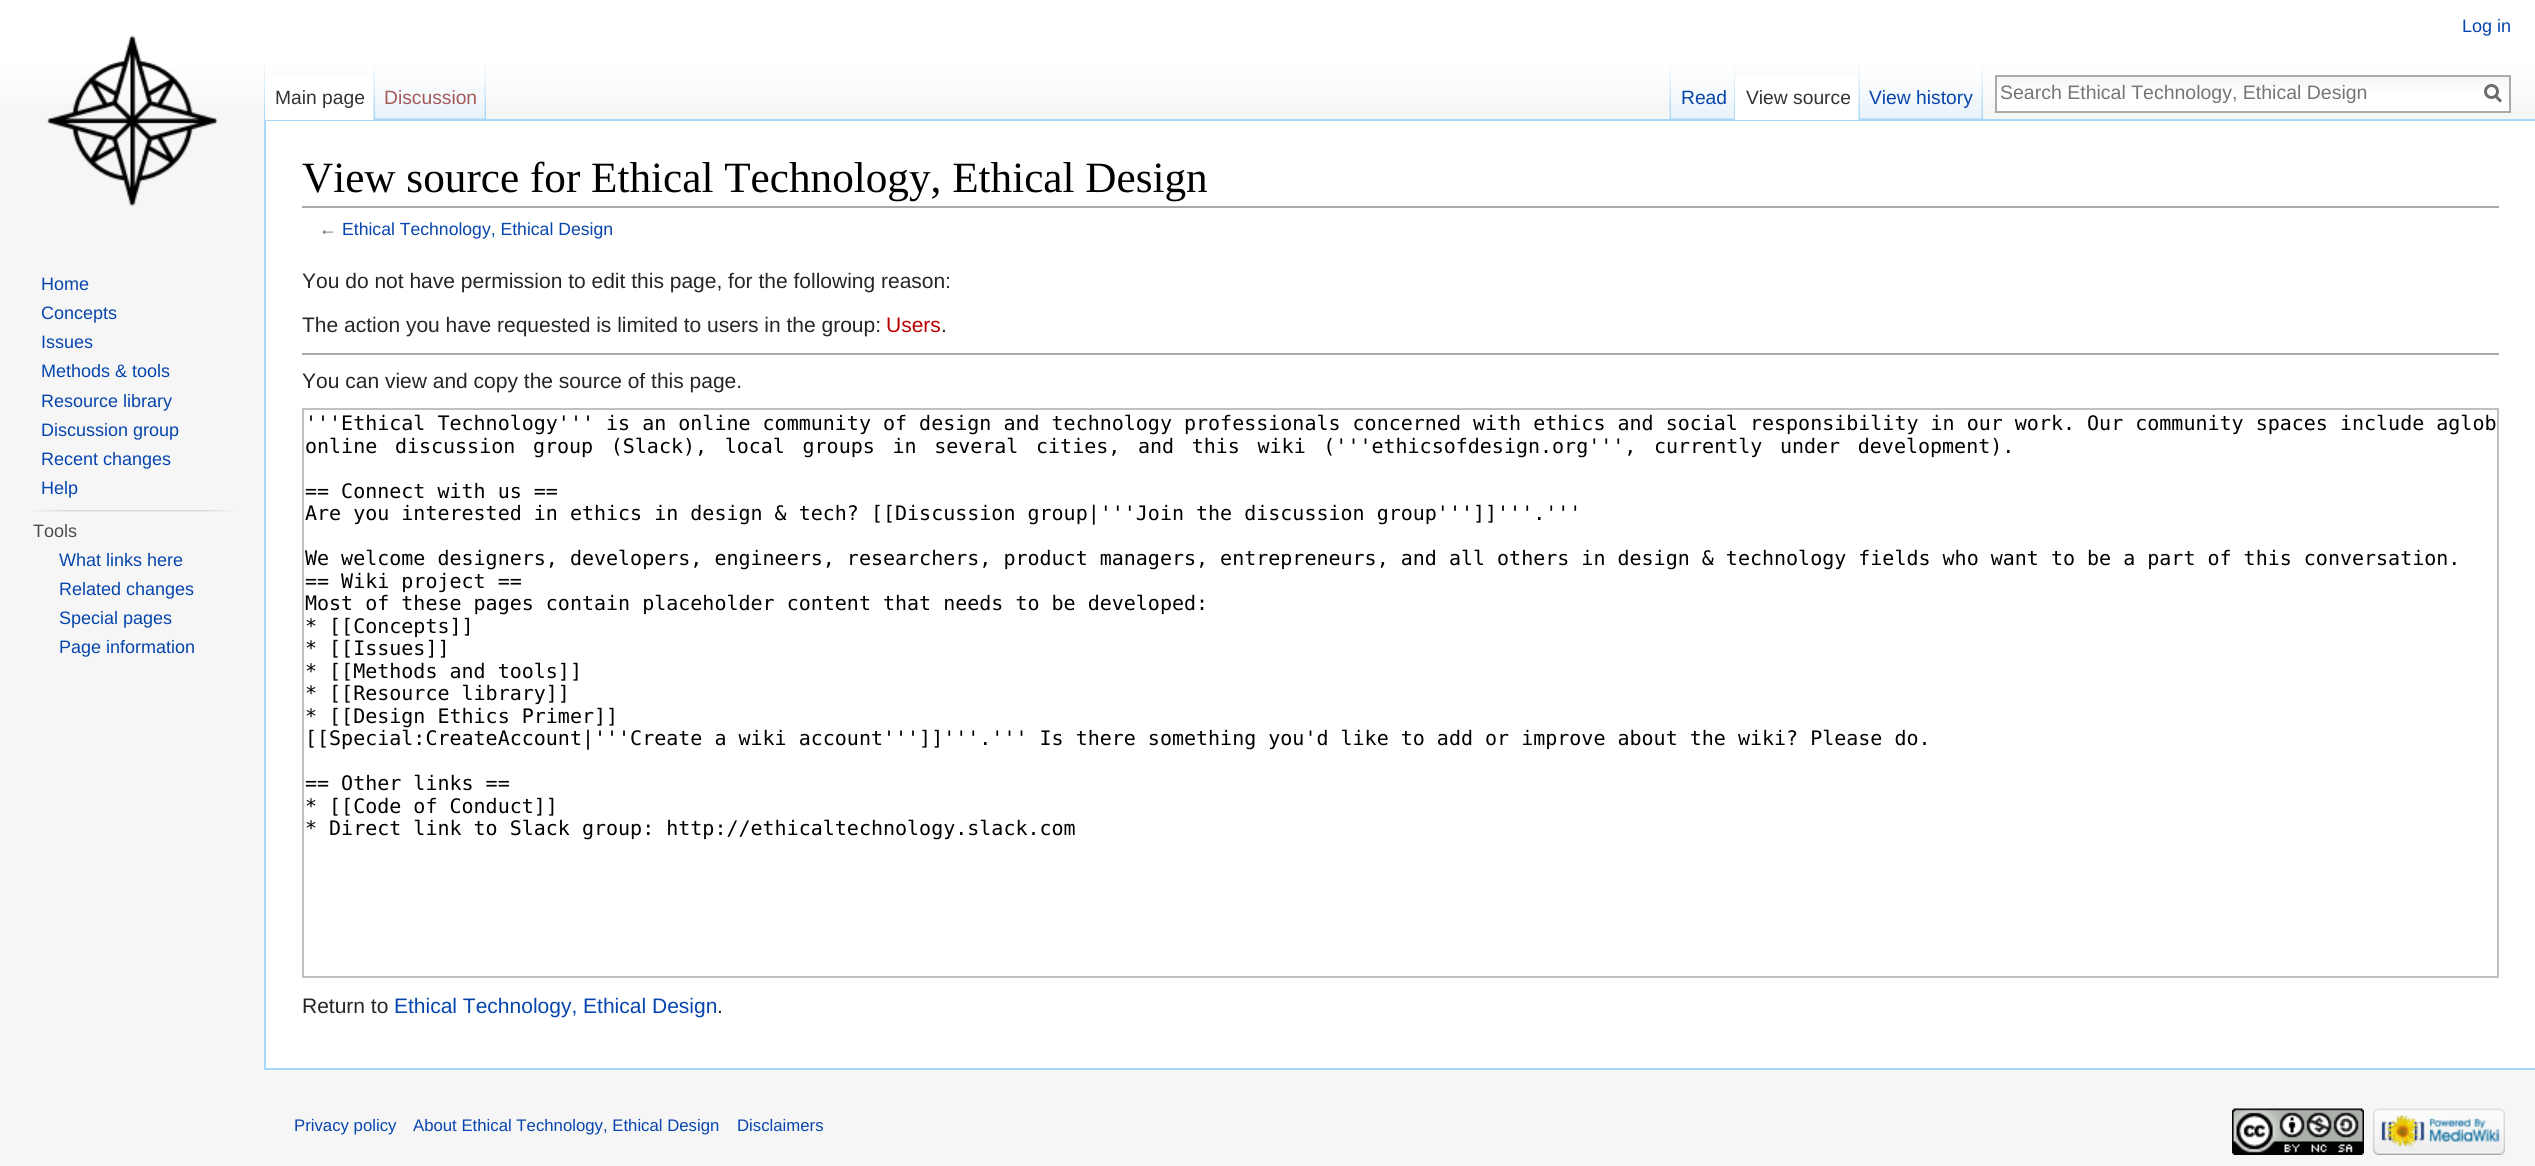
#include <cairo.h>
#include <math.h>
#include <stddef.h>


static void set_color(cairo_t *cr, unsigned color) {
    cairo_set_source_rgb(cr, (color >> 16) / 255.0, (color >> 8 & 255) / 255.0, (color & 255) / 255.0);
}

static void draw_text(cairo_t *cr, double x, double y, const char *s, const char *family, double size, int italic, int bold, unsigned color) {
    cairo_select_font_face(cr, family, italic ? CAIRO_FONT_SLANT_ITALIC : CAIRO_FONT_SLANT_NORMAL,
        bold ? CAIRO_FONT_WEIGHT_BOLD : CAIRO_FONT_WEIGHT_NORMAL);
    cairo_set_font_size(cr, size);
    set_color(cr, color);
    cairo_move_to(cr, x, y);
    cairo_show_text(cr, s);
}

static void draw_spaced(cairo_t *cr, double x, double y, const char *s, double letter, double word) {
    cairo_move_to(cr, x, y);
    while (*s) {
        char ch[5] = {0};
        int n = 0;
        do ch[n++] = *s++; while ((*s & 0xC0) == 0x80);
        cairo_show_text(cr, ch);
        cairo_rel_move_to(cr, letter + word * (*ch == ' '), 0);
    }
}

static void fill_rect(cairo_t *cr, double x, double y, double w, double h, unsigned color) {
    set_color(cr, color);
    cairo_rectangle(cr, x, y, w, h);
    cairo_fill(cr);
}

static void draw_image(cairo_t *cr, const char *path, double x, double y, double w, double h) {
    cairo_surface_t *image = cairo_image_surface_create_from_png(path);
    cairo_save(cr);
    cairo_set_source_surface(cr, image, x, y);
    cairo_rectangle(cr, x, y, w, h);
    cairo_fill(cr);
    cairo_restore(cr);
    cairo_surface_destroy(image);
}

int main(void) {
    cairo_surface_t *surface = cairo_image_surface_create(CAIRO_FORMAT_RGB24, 2535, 1166);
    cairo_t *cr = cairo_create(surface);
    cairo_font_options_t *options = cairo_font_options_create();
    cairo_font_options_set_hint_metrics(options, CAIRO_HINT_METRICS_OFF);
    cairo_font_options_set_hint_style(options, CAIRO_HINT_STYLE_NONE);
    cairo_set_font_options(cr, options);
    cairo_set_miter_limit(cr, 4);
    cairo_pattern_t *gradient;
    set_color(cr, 0xF6F6F6);
    cairo_paint(cr);
    gradient = cairo_pattern_create_linear(1268, 0, 1268, 120);
    cairo_pattern_add_color_stop_rgba(gradient, 0.5, 1, 1, 1, 1);
    cairo_pattern_add_color_stop_rgba(gradient, 1, 0.965, 0.965, 0.965, 1);
    cairo_set_source(cr, gradient);
    cairo_pattern_destroy(gradient);
    cairo_rectangle(cr, 0, 0, 2535, 103);
    cairo_fill(cr);
    draw_text(cr, 2462, 32, "Log in", "Liberation Sans", 18, 0, 0, 0x0645AD);
    draw_image(cr, "assets/img1.png", 264, 60, 1, 59);
    fill_rect(cr, 264, 119, 2271, 2, 0xA7D7F9);
    fill_rect(cr, 264, 1068, 2271, 2, 0xA7D7F9);
    fill_rect(cr, 264, 119, 2, 951, 0xA7D7F9);
    fill_rect(cr, 265, 77, 110, 43, 0xFFFFFF);
    draw_image(cr, "assets/img2.png", 373, 61, 2, 59);
    draw_text(cr, 275, 104, "Main page", "Liberation Sans", 19.25, 0, 0, 0x333333);
    draw_image(cr, "assets/img3.png", 375, 60, 111, 60);
    draw_image(cr, "assets/img4.png", 484, 61, 2, 58);
    draw_text(cr, 384, 104, "Discussion", "Liberation Sans", 19.25, 0, 0, 0xA55858);
    draw_image(cr, "assets/img5.png", 1669, 60, 2, 59);
    draw_image(cr, "assets/img6.png", 1671, 60, 64, 60);
    draw_image(cr, "assets/img7.png", 1734, 61, 1, 59);
    draw_text(cr, 1681, 104, "Read", "Liberation Sans", 19.25, 0, 0, 0x0645AD);
    fill_rect(cr, 1735, 77, 125, 43, 0xFFFFFF);
    draw_image(cr, "assets/img2.png", 1858, 61, 2, 59);
    draw_text(cr, 1746, 104, "View source", "Liberation Sans", 19.25, 0, 0, 0x333333);
    draw_image(cr, "assets/img8.png", 1860, 60, 123, 60);
    draw_image(cr, "assets/img4.png", 1981, 61, 2, 58);
    draw_text(cr, 1869, 104, "View history", "Liberation Sans", 19.25, 0, 0, 0x0645AD);
    fill_rect(cr, 1997, 89, 512, 22, 0xFFFFFF);
    draw_image(cr, "assets/img9.png", 1997, 77, 512, 12);
    cairo_rectangle(cr, 1996, 76, 514, 36);
    set_color(cr, 0xAAAAAA);
    cairo_stroke(cr);
    draw_text(cr, 2000, 99, "Search Ethical Technology, Ethical Design", "Liberation Sans", 19.5, 0, 0, 0x757575);
    cairo_new_path(cr);
    cairo_move_to(cr, 2501, 101.5);
    cairo_line_to(cr, 2495, 95.5);
    set_color(cr, 0x6C6C6C);
    cairo_set_line_width(cr, 3);
    cairo_stroke(cr);
    cairo_arc(cr, 2491.5, 91.5, 6, 0, 2 * M_PI);
    cairo_stroke(cr);
    draw_image(cr, "assets/img10.png", 47, 35, 171, 171);
    draw_text(cr, 41, 290, "Home", "Liberation Sans", 18, 0, 0, 0x0645AD);
    draw_text(cr, 41, 319, "Concepts", "Liberation Sans", 18, 0, 0, 0x0645AD);
    draw_text(cr, 41, 348, "Issues", "Liberation Sans", 18, 0, 0, 0x0645AD);
    draw_text(cr, 41, 377, "Methods & tools", "Liberation Sans", 18, 0, 0, 0x0645AD);
    draw_text(cr, 41, 407, "Resource library", "Liberation Sans", 18, 0, 0, 0x0645AD);
    draw_text(cr, 41, 436, "Discussion group", "Liberation Sans", 18, 0, 0, 0x0645AD);
    draw_text(cr, 41, 465, "Recent changes", "Liberation Sans", 18, 0, 0, 0x0645AD);
    draw_text(cr, 41, 494, "Help", "Liberation Sans", 18, 0, 0, 0x0645AD);
    draw_image(cr, "assets/img11.png", 32, 510, 204, 2);
    draw_text(cr, 33, 537, "Tools", "Liberation Sans", 18, 0, 0, 0x4D4D4D);
    draw_text(cr, 59, 566, "What links here", "Liberation Sans", 18, 0, 0, 0x0645AD);
    draw_text(cr, 59, 595, "Related changes", "Liberation Sans", 18, 0, 0, 0x0645AD);
    draw_text(cr, 59, 624, "Special pages", "Liberation Sans", 18, 0, 0, 0x0645AD);
    draw_text(cr, 59, 653, "Page information", "Liberation Sans", 18, 0, 0, 0x0645AD);
    fill_rect(cr, 266, 121, 2269, 947, 0xFFFFFF);
    fill_rect(cr, 302, 206, 2197, 2, 0xAAAAAA);
    draw_text(cr, 302, 192, "View source for Ethical Technology, Ethical Design", "Liberation Serif", 43.2, 0, 0, 0x000000);
    draw_text(cr, 319, 235, "←", "Liberation Sans", 17.6, 0, 0, 0x545454);
    draw_text(cr, 342, 235, "Ethical Technology, Ethical Design", "Liberation Sans", 17.6, 0, 0, 0x0645AD);
    draw_text(cr, 302, 288, "You do not have permission to edit this page, for the following reason:", "Liberation Sans", 21, 0, 0, 0x252525);
    draw_text(cr, 302, 332, "The action you have requested is limited to users in the group:", "Liberation Sans", 21, 0, 0, 0x252525);
    draw_text(cr, 886, 332, "Users", "Liberation Sans", 21, 0, 0, 0xBA0000);
    draw_text(cr, 941, 332, ".", "Liberation Sans", 21, 0, 0, 0x252525);
    fill_rect(cr, 302, 353, 2197, 2, 0xAAAAAA);
    draw_text(cr, 302, 388, "You can view and copy the source of this page.", "Liberation Sans", 21, 0, 0, 0x252525);
    cairo_rectangle(cr, 303, 409, 2195, 568);
    set_color(cr, 0xC0C0C0);
    cairo_set_line_width(cr, 2);
    cairo_stroke(cr);
    draw_text(cr, 305, 430, "'''Ethical Technology''' is an online community of design and technology professionals concerned with ethics and social responsibility in our work. Our community spaces include aglob", "DejaVu Sans Mono", 20, 0, 0, 0x000000);
    draw_spaced(cr, 305, 453, "online discussion group (Slack), local groups in several cities, and this wiki ('''ethicsofdesign.org''', currently under development).", 0, 5.6);
    draw_text(cr, 305, 498, "== Connect with us ==", "DejaVu Sans Mono", 20, 0, 0, 0x000000);
    draw_text(cr, 305, 520, "Are you interested in ethics in design & tech? [[Discussion group|'''Join the discussion group''']]'''.'''", "DejaVu Sans Mono", 20, 0, 0, 0x000000);
    draw_text(cr, 305, 565, "We welcome designers, developers, engineers, researchers, product managers, entrepreneurs, and all others in design & technology fields who want to be a part of this conversation.", "DejaVu Sans Mono", 20, 0, 0, 0x000000);
    draw_text(cr, 305, 588, "== Wiki project ==", "DejaVu Sans Mono", 20, 0, 0, 0x000000);
    draw_text(cr, 305, 610, "Most of these pages contain placeholder content that needs to be developed:", "DejaVu Sans Mono", 20, 0, 0, 0x000000);
    draw_text(cr, 305, 633, "* [[Concepts]]", "DejaVu Sans Mono", 20, 0, 0, 0x000000);
    draw_text(cr, 305, 655, "* [[Issues]]", "DejaVu Sans Mono", 20, 0, 0, 0x000000);
    draw_text(cr, 305, 678, "* [[Methods and tools]]", "DejaVu Sans Mono", 20, 0, 0, 0x000000);
    draw_text(cr, 305, 700, "* [[Resource library]]", "DejaVu Sans Mono", 20, 0, 0, 0x000000);
    draw_text(cr, 305, 723, "* [[Design Ethics Primer]]", "DejaVu Sans Mono", 20, 0, 0, 0x000000);
    draw_text(cr, 305, 745, "[[Special:CreateAccount|'''Create a wiki account''']]'''.''' Is there something you'd like to add or improve about the wiki? Please do.", "DejaVu Sans Mono", 20, 0, 0, 0x000000);
    draw_text(cr, 305, 790, "== Other links ==", "DejaVu Sans Mono", 20, 0, 0, 0x000000);
    draw_text(cr, 305, 813, "* [[Code of Conduct]]", "DejaVu Sans Mono", 20, 0, 0, 0x000000);
    draw_text(cr, 305, 835, "* Direct link to Slack group: http://ethicaltechnology.slack.com", "DejaVu Sans Mono", 20, 0, 0, 0x000000);
    draw_text(cr, 302, 1013, "Return to", "Liberation Sans", 21, 0, 0, 0x252525);
    draw_text(cr, 394, 1013, "Ethical Technology, Ethical Design", "Liberation Sans", 21, 0, 0, 0x0645AD);
    draw_text(cr, 717, 1013, ".", "Liberation Sans", 21, 0, 0, 0x252525);
    draw_text(cr, 294, 1131, "Privacy policy", "Liberation Sans", 16.75, 0, 0, 0x0645AD);
    draw_text(cr, 413, 1131, "About Ethical Technology, Ethical Design", "Liberation Sans", 16.75, 0, 0, 0x0645AD);
    draw_text(cr, 737, 1131, "Disclaimers", "Liberation Sans", 16.75, 0, 0, 0x0645AD);
    draw_image(cr, "assets/img12.png", 2232, 1108, 132, 47);
    draw_image(cr, "assets/img13.png", 2373, 1108, 132, 47);
    cairo_surface_write_to_png(surface, "output.png");
    cairo_font_options_destroy(options);
    cairo_destroy(cr);
    cairo_surface_destroy(surface);
    return 0;
}
